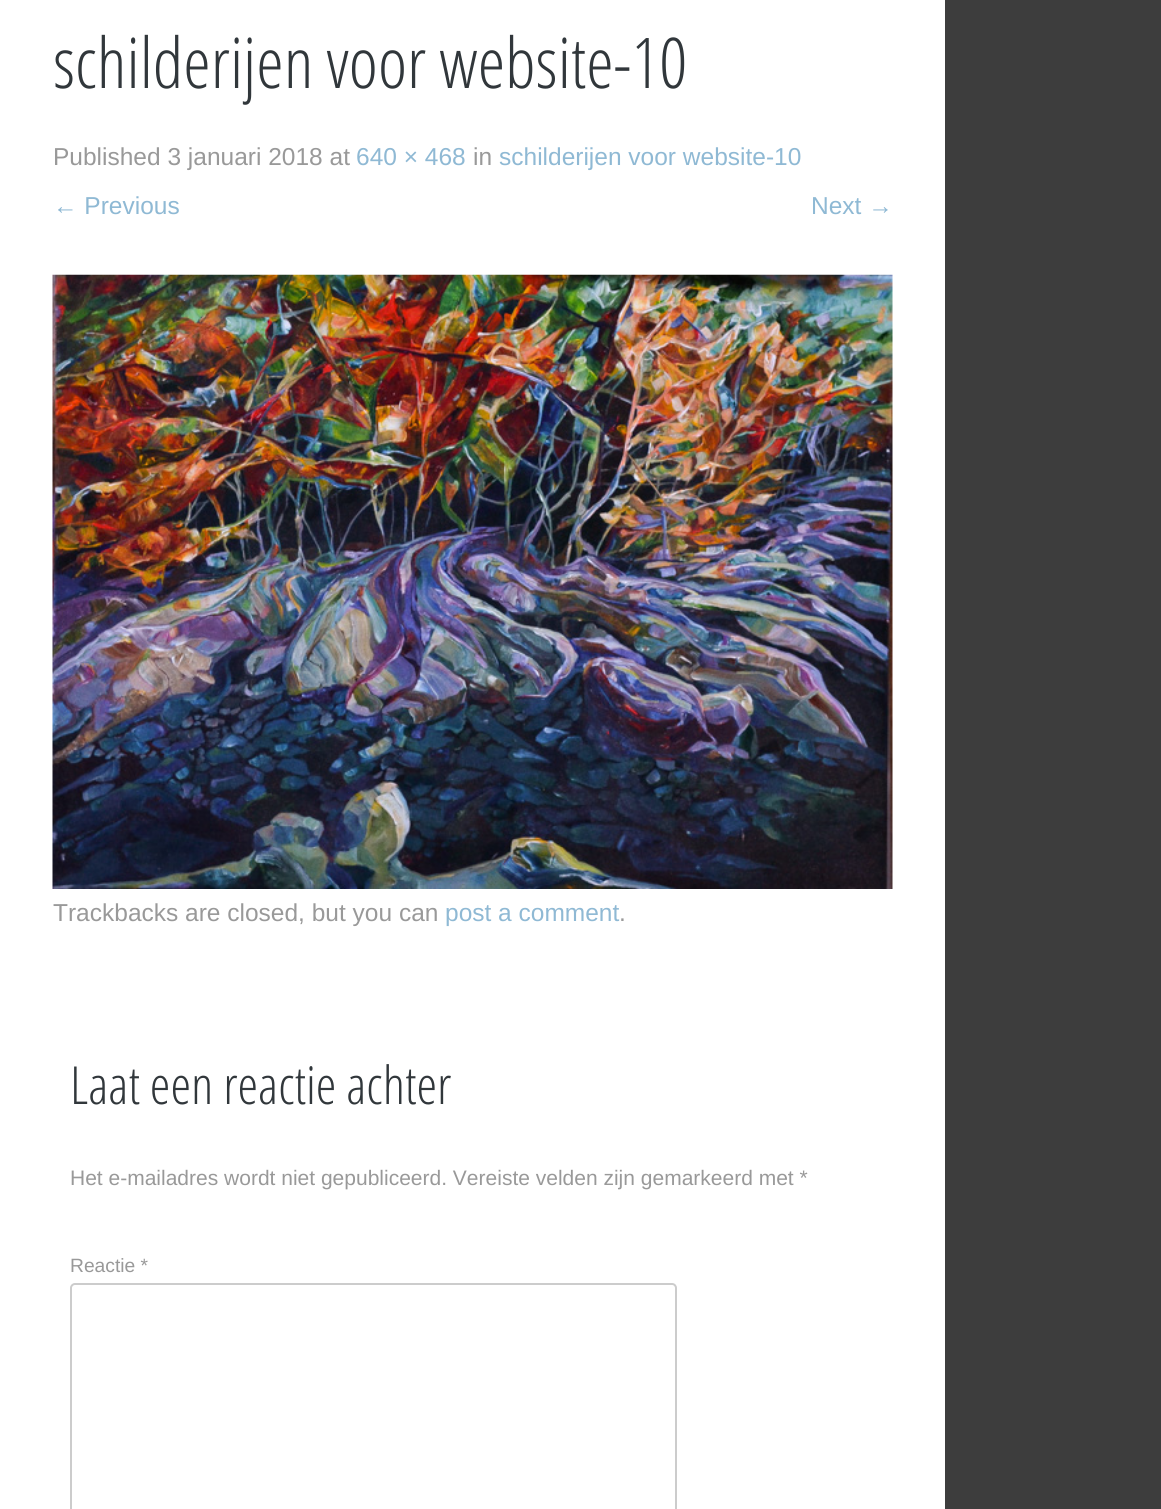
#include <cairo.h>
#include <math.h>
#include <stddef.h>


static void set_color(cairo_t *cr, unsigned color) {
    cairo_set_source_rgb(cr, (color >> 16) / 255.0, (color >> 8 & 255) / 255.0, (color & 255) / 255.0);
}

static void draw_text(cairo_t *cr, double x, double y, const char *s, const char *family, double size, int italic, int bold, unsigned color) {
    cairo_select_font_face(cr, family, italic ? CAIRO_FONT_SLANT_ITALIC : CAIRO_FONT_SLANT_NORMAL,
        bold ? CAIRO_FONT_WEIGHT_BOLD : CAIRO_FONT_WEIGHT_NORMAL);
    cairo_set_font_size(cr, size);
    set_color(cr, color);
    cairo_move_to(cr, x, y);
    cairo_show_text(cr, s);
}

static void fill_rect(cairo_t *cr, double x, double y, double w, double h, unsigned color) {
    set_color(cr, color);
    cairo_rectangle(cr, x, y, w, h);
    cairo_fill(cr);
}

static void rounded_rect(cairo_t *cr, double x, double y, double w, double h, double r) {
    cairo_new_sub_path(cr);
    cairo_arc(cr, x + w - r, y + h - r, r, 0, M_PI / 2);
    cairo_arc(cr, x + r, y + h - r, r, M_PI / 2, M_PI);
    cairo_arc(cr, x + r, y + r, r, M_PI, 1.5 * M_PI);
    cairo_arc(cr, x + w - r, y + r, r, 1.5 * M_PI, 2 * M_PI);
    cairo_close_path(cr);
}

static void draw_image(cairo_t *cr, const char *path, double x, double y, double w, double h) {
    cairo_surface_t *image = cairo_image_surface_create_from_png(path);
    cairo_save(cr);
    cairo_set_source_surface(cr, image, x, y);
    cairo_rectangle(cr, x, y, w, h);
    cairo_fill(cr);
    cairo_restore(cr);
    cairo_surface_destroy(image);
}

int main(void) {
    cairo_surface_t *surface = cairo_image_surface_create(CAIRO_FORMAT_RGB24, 1161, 1509);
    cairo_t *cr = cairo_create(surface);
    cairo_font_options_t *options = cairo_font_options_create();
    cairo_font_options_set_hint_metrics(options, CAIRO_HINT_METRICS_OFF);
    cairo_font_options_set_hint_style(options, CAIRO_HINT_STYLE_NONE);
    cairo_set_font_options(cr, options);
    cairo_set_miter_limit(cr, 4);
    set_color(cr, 0x3D3D3D);
    cairo_paint(cr);
    fill_rect(cr, 0, 0, 945, 1509, 0xFFFFFF);
    draw_text(cr, 53, 88, "schilderijen voor website-10", "Open Sans Condensed Light", 70, 0, 0, 0x31373B);
    draw_text(cr, 53, 165, "Published 3 januari 2018 at", "Liberation Sans", 24.5, 0, 0, 0x999999);
    draw_text(cr, 356, 165, "640 × 468", "Liberation Sans", 24.5, 0, 0, 0x8FB9D4);
    draw_text(cr, 473, 165, "in", "Liberation Sans", 24.5, 0, 0, 0x999999);
    draw_text(cr, 499, 165, "schilderijen voor website-10", "Liberation Sans", 24.5, 0, 0, 0x8FB9D4);
    draw_text(cr, 53, 214, "← Previous", "Liberation Sans", 24.5, 0, 0, 0x8FB9D4);
    draw_text(cr, 811, 214, "Next →", "Liberation Sans", 24.5, 0, 0, 0x8FB9D4);
    draw_image(cr, "assets/img1.png", 52, 274, 841, 615);
    draw_text(cr, 53, 921, "Trackbacks are closed, but you can", "Liberation Sans", 24.5, 0, 0, 0x999999);
    draw_text(cr, 445, 921, "post a comment", "Liberation Sans", 24.5, 0, 0, 0x8FB9D4);
    draw_text(cr, 619, 921, ".", "Liberation Sans", 24.5, 0, 0, 0x999999);
    draw_text(cr, 70, 1104, "Laat een reactie achter", "Open Sans Condensed Light", 52.5, 0, 0, 0x31373B);
    draw_text(cr, 70, 1185, "Het e-mailadres wordt niet gepubliceerd. Vereiste velden zijn gemarkeerd met *", "Liberation Sans", 21, 0, 0, 0x999999);
    draw_text(cr, 70, 1272, "Reactie *", "Liberation Sans", 19.25, 0, 0, 0x999999);
    rounded_rect(cr, 71, 1284, 605, 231, 4);
    set_color(cr, 0xCCCCCC);
    cairo_stroke(cr);
    cairo_surface_write_to_png(surface, "output.png");
    cairo_font_options_destroy(options);
    cairo_destroy(cr);
    cairo_surface_destroy(surface);
    return 0;
}
